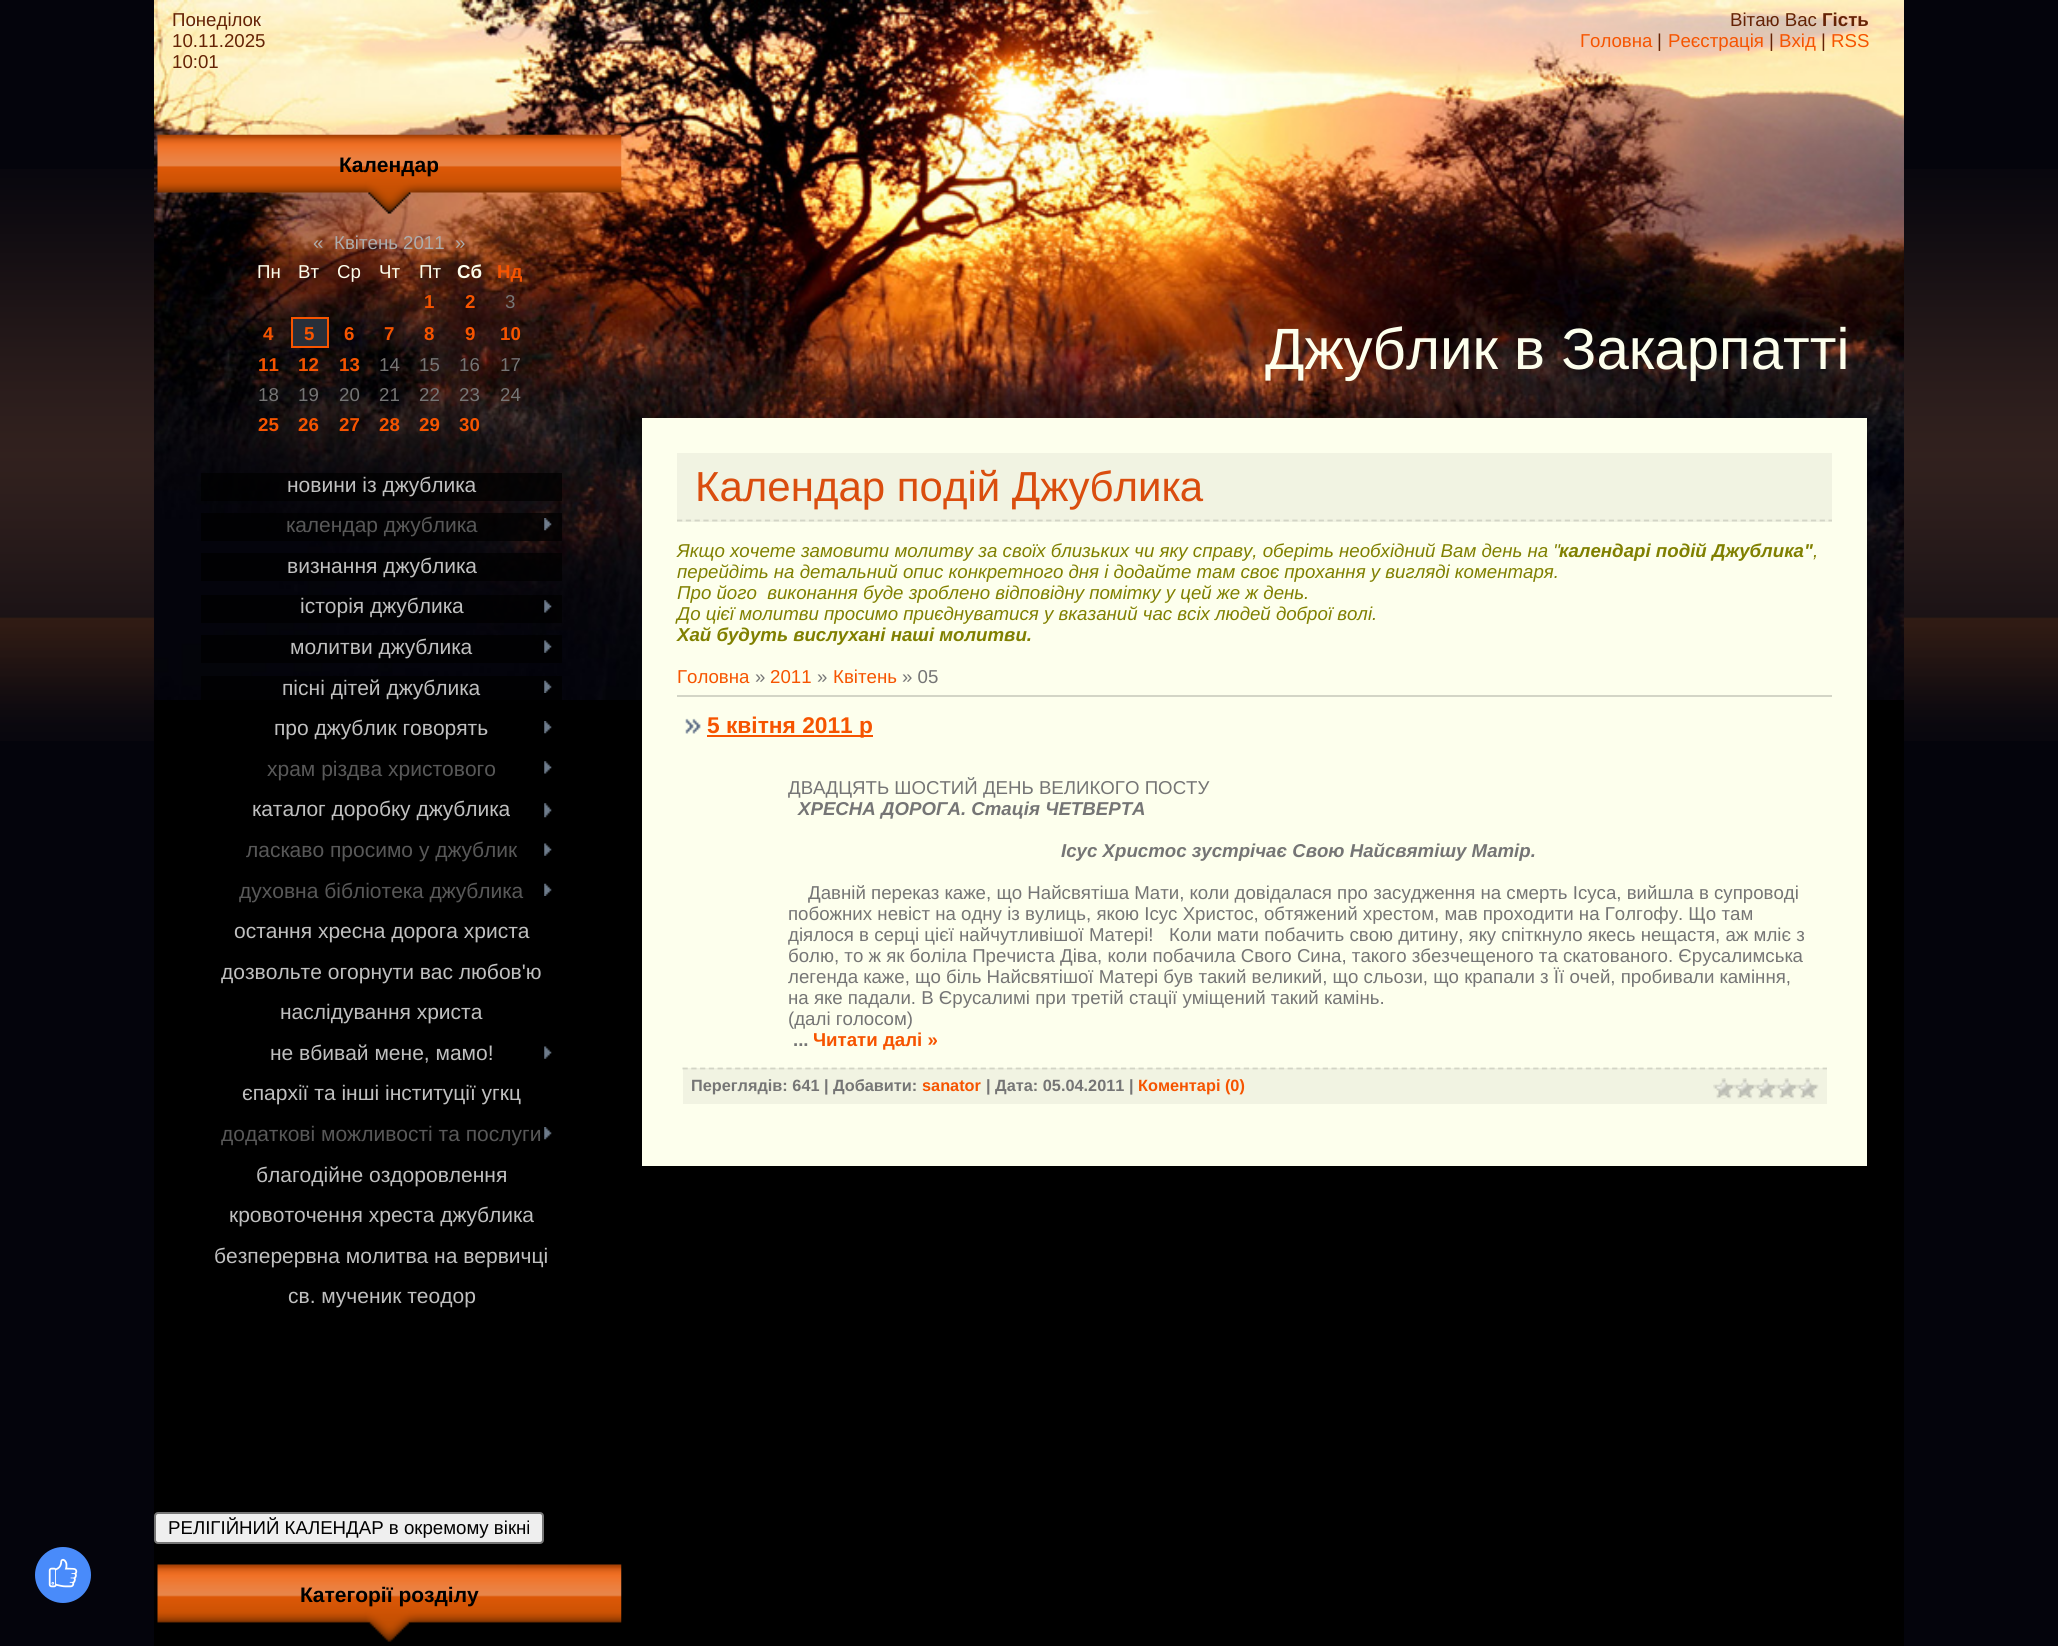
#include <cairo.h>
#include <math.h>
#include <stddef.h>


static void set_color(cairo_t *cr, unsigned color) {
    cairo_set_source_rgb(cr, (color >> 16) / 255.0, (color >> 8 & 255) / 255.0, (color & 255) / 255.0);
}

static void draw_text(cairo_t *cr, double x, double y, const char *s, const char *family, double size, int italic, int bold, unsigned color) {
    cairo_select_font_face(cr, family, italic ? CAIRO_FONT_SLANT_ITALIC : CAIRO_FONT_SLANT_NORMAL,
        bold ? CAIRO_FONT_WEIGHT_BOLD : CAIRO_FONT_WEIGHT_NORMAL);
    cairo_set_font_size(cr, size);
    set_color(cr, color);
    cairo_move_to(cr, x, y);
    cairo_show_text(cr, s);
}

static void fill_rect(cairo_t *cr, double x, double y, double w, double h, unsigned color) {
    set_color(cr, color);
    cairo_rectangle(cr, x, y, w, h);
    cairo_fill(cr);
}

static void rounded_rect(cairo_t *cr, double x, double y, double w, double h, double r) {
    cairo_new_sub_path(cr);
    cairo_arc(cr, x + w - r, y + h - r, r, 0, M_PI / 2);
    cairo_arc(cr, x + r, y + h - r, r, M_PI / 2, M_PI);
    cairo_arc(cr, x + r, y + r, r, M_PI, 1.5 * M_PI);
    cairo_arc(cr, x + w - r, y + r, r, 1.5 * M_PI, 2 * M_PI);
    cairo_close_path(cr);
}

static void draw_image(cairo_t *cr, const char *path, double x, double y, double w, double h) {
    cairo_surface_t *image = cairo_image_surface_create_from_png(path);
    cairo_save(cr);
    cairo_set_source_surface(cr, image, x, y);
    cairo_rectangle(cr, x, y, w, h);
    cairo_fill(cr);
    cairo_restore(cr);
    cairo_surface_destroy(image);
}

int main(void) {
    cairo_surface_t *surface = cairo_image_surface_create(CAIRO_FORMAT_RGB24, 2058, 1646);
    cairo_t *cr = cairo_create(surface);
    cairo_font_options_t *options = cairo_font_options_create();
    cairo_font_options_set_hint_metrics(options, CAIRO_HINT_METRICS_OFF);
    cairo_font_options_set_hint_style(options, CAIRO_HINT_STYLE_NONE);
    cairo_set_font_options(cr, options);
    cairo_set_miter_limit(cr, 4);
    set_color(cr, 0x04040C);
    cairo_paint(cr);
    set_color(cr, 0x498BFA);
    cairo_arc(cr, 63, 1575, 28, 0, 2 * M_PI);
    cairo_fill(cr);
    draw_image(cr, "assets/img1.png", 48, 1558, 30, 30);
    draw_image(cr, "assets/img2.png", 0, 169, 2058, 572);
    fill_rect(cr, 154, 700, 1750, 946, 0x000000);
    draw_image(cr, "assets/img3.png", 154, 0, 1750, 700);
    draw_text(cr, 172, 26, "Понеділок", "Liberation Sans", 18.67, 0, 0, 0x652305);
    draw_text(cr, 172, 47, "10.11.2025", "Liberation Sans", 18.67, 0, 0, 0x652305);
    draw_text(cr, 172, 68, "10:01", "Liberation Sans", 18.67, 0, 0, 0x652305);
    draw_text(cr, 1730, 26, "Вітаю Вас", "Liberation Sans", 18.67, 0, 0, 0x652305);
    draw_text(cr, 1822, 26, "Гість", "Liberation Sans", 18.67, 0, 1, 0x652305);
    draw_text(cr, 1580, 47, "Головна", "Liberation Sans", 18.67, 0, 0, 0xF65400);
    draw_text(cr, 1657, 47, "|", "Liberation Sans", 18.67, 0, 0, 0x652305);
    draw_text(cr, 1668, 47, "Реєстрація", "Liberation Sans", 18.67, 0, 0, 0xF65400);
    draw_text(cr, 1769, 47, "|", "Liberation Sans", 18.67, 0, 0, 0x652305);
    draw_text(cr, 1779, 47, "Вхід", "Liberation Sans", 18.67, 0, 0, 0xF65400);
    draw_text(cr, 1821, 47, "|", "Liberation Sans", 18.67, 0, 0, 0x652305);
    draw_text(cr, 1831, 47, "RSS", "Liberation Sans", 18.67, 0, 0, 0xF65400);
    draw_image(cr, "assets/img4.png", 157, 134, 465, 80);
    draw_text(cr, 339, 172, "Календар", "Liberation Sans", 21, 0, 1, 0x000000);
    draw_text(cr, 313, 249, "«", "Liberation Sans", 18.67, 0, 0, 0xADADAD);
    draw_text(cr, 334, 249, "Квітень 2011", "Liberation Sans", 18.67, 0, 0, 0xADADAD);
    draw_text(cr, 455, 249, "»", "Liberation Sans", 18.67, 0, 0, 0xADADAD);
    draw_text(cr, 257, 278, "Пн", "Liberation Sans", 18.67, 0, 0, 0xFDFFED);
    draw_text(cr, 298, 278, "Вт", "Liberation Sans", 18.67, 0, 0, 0xFDFFED);
    draw_text(cr, 337, 278, "Ср", "Liberation Sans", 18.67, 0, 0, 0xFDFFED);
    draw_text(cr, 379, 278, "Чт", "Liberation Sans", 18.67, 0, 0, 0xFDFFED);
    draw_text(cr, 419, 278, "Пт", "Liberation Sans", 18.67, 0, 0, 0xFDFFED);
    draw_text(cr, 457, 278, "Сб", "Liberation Sans", 18.67, 0, 1, 0xFDFFED);
    draw_text(cr, 497, 278, "Нд", "Liberation Sans", 18.67, 0, 1, 0xF65400);
    draw_text(cr, 424, 308, "1", "Liberation Sans", 18.67, 0, 1, 0xF65400);
    draw_text(cr, 465, 308, "2", "Liberation Sans", 18.67, 0, 1, 0xF65400);
    draw_text(cr, 505, 308, "3", "Liberation Sans", 18.67, 0, 0, 0x757575);
    draw_text(cr, 263, 340, "4", "Liberation Sans", 18.67, 0, 1, 0xF65400);
    set_color(cr, 0x282F39);
    cairo_rectangle(cr, 292, 318, 36, 29);
    cairo_fill_preserve(cr);
    set_color(cr, 0xF65400);
    cairo_stroke(cr);
    draw_text(cr, 304, 340, "5", "Liberation Sans", 18.67, 0, 1, 0xF65400);
    draw_text(cr, 344, 340, "6", "Liberation Sans", 18.67, 0, 1, 0xF65400);
    draw_text(cr, 384, 340, "7", "Liberation Sans", 18.67, 0, 1, 0xF65400);
    draw_text(cr, 424, 340, "8", "Liberation Sans", 18.67, 0, 1, 0xF65400);
    draw_text(cr, 465, 340, "9", "Liberation Sans", 18.67, 0, 1, 0xF65400);
    draw_text(cr, 500, 340, "10", "Liberation Sans", 18.67, 0, 1, 0xF65400);
    draw_text(cr, 258, 371, "11", "Liberation Sans", 18.67, 0, 1, 0xF65400);
    draw_text(cr, 298, 371, "12", "Liberation Sans", 18.67, 0, 1, 0xF65400);
    draw_text(cr, 339, 371, "13", "Liberation Sans", 18.67, 0, 1, 0xF65400);
    draw_text(cr, 379, 371, "14", "Liberation Sans", 18.67, 0, 0, 0x757575);
    draw_text(cr, 419, 371, "15", "Liberation Sans", 18.67, 0, 0, 0x757575);
    draw_text(cr, 459, 371, "16", "Liberation Sans", 18.67, 0, 0, 0x757575);
    draw_text(cr, 500, 371, "17", "Liberation Sans", 18.67, 0, 0, 0x757575);
    draw_text(cr, 258, 401, "18", "Liberation Sans", 18.67, 0, 0, 0x757575);
    draw_text(cr, 298, 401, "19", "Liberation Sans", 18.67, 0, 0, 0x757575);
    draw_text(cr, 339, 401, "20", "Liberation Sans", 18.67, 0, 0, 0x757575);
    draw_text(cr, 379, 401, "21", "Liberation Sans", 18.67, 0, 0, 0x757575);
    draw_text(cr, 419, 401, "22", "Liberation Sans", 18.67, 0, 0, 0x757575);
    draw_text(cr, 459, 401, "23", "Liberation Sans", 18.67, 0, 0, 0x757575);
    draw_text(cr, 500, 401, "24", "Liberation Sans", 18.67, 0, 0, 0x757575);
    draw_text(cr, 258, 431, "25", "Liberation Sans", 18.67, 0, 1, 0xF65400);
    draw_text(cr, 298, 431, "26", "Liberation Sans", 18.67, 0, 1, 0xF65400);
    draw_text(cr, 339, 431, "27", "Liberation Sans", 18.67, 0, 1, 0xF65400);
    draw_text(cr, 379, 431, "28", "Liberation Sans", 18.67, 0, 1, 0xF65400);
    draw_text(cr, 419, 431, "29", "Liberation Sans", 18.67, 0, 1, 0xF65400);
    draw_text(cr, 459, 431, "30", "Liberation Sans", 18.67, 0, 1, 0xF65400);
    cairo_set_source_rgba(cr, 0, 0, 0, 0.75);
    cairo_rectangle(cr, 201, 473, 361, 28);
    cairo_fill(cr);
    draw_text(cr, 287, 492, "новини із джублика", "Liberation Sans", 21, 0, 0, 0xC0C0C0);
    cairo_set_source_rgba(cr, 0, 0, 0, 0.75);
    cairo_rectangle(cr, 201, 513, 361, 28);
    cairo_fill(cr);
    draw_text(cr, 286, 532, "календар джублика", "Liberation Sans", 21, 0, 0, 0x585858);
    draw_image(cr, "assets/img5.png", 544, 518, 8, 13);
    cairo_set_source_rgba(cr, 0, 0, 0, 0.75);
    cairo_rectangle(cr, 201, 553, 361, 28);
    cairo_fill(cr);
    draw_text(cr, 287, 573, "визнання джублика", "Liberation Sans", 21, 0, 0, 0xC0C0C0);
    cairo_set_source_rgba(cr, 0, 0, 0, 0.75);
    cairo_rectangle(cr, 201, 595, 361, 28);
    cairo_fill(cr);
    draw_text(cr, 300, 613, "історія джублика", "Liberation Sans", 21, 0, 0, 0xC0C0C0);
    draw_image(cr, "assets/img6.png", 544, 600, 8, 13);
    cairo_set_source_rgba(cr, 0, 0, 0, 0.75);
    cairo_rectangle(cr, 201, 635, 361, 28);
    cairo_fill(cr);
    draw_text(cr, 290, 654, "молитви джублика", "Liberation Sans", 21, 0, 0, 0xC0C0C0);
    draw_image(cr, "assets/img7.png", 544, 640, 8, 13);
    cairo_set_source_rgba(cr, 0, 0, 0, 0.75);
    cairo_rectangle(cr, 201, 676, 361, 24);
    cairo_fill(cr);
    draw_text(cr, 282, 695, "пісні дітей джублика", "Liberation Sans", 21, 0, 0, 0xC0C0C0);
    draw_image(cr, "assets/img8.png", 544, 680, 8, 13);
    draw_text(cr, 274, 735, "про джублик говорять", "Liberation Sans", 21, 0, 0, 0xC0C0C0);
    draw_image(cr, "assets/img9.png", 544, 721, 8, 13);
    draw_text(cr, 267, 776, "храм різдва христового", "Liberation Sans", 21, 0, 0, 0x585858);
    draw_image(cr, "assets/img10.png", 544, 761, 8, 13);
    draw_text(cr, 252, 816, "каталог доробку джублика", "Liberation Sans", 21, 0, 0, 0xC0C0C0);
    draw_image(cr, "assets/img11.png", 544, 803, 8, 15);
    draw_text(cr, 246, 857, "ласкаво просимо у джублик", "Liberation Sans", 21, 0, 0, 0x585858);
    draw_image(cr, "assets/img12.png", 544, 843, 8, 13);
    draw_text(cr, 239, 898, "духовна бібліотека джублика", "Liberation Sans", 21, 0, 0, 0x585858);
    draw_image(cr, "assets/img13.png", 544, 883, 8, 13);
    draw_text(cr, 234, 938, "остання хресна дорога христа", "Liberation Sans", 21, 0, 0, 0xC0C0C0);
    draw_text(cr, 221, 979, "дозвольте огорнути вас любов'ю", "Liberation Sans", 21, 0, 0, 0xC0C0C0);
    draw_text(cr, 280, 1019, "наслідування христа", "Liberation Sans", 21, 0, 0, 0xC0C0C0);
    draw_text(cr, 270, 1060, "не вбивай мене, мамо!", "Liberation Sans", 21, 0, 0, 0xC0C0C0);
    draw_image(cr, "assets/img12.png", 544, 1046, 8, 13);
    draw_text(cr, 242, 1100, "єпархії та інші інституції угкц", "Liberation Sans", 21, 0, 0, 0xC0C0C0);
    draw_text(cr, 221, 1141, "додаткові можливості та послуги", "Liberation Sans", 21, 0, 0, 0x585858);
    draw_image(cr, "assets/img9.png", 544, 1127, 8, 13);
    draw_text(cr, 256, 1182, "благодійне оздоровлення", "Liberation Sans", 21, 0, 0, 0xC0C0C0);
    draw_text(cr, 229, 1222, "кровоточення хреста джублика", "Liberation Sans", 21, 0, 0, 0xC0C0C0);
    draw_text(cr, 214, 1263, "безперервна молитва на вервичці", "Liberation Sans", 21, 0, 0, 0xC0C0C0);
    draw_text(cr, 288, 1303, "св. мученик теодор", "Liberation Sans", 21, 0, 0, 0xC0C0C0);
    set_color(cr, 0xEFEFEF);
    rounded_rect(cr, 155, 1513, 388, 30, 3);
    cairo_fill_preserve(cr);
    set_color(cr, 0x767676);
    cairo_stroke(cr);
    draw_text(cr, 168, 1534, "РЕЛІГІЙНИЙ КАЛЕНДАР в окремому вікні", "Liberation Sans", 18.67, 0, 0, 0x000000);
    draw_image(cr, "assets/img14.png", 157, 1564, 465, 78);
    draw_text(cr, 300, 1602, "Категорії розділу", "Liberation Sans", 21, 0, 1, 0x000000);
    draw_text(cr, 1265, 369, "Джублик в Закарпатті", "Liberation Sans", 58.25, 0, 0, 0xFDFFED);
    fill_rect(cr, 642, 418, 1225, 748, 0xFDFFED);
    fill_rect(cr, 677, 453, 1155, 69, 0xF1F3E2);
    cairo_new_path(cr);
    cairo_move_to(cr, 677, 520.5);
    cairo_line_to(cr, 1832, 520.5);
    set_color(cr, 0xD3D5C6);
    cairo_set_line_width(cr, 1.8);
    cairo_set_dash(cr, (double[]){5.25, 3.54}, 2, 0);
    cairo_stroke(cr);
    draw_text(cr, 695, 501, "Календар подій Джублика", "Liberation Sans", 42, 0, 0, 0xDA4D0E);
    draw_text(cr, 677, 557, "Якщо хочете замовити молитву за своїх близьких чи яку справу, оберіть необхідний Вам день на \"", "Liberation Sans", 18.67, 1, 0, 0x808000);
    draw_text(cr, 1559, 557, "календарі подій Джублика\"", "Liberation Sans", 18.67, 1, 1, 0x808000);
    draw_text(cr, 1813, 557, ",", "Liberation Sans", 18.67, 1, 0, 0x808000);
    draw_text(cr, 677, 578, "перейдіть на детальний опис конкретного дня і додайте там своє прохання у вигляді коментаря.", "Liberation Sans", 18.67, 1, 0, 0x808000);
    draw_text(cr, 677, 599, "Про його  виконання буде зроблено відповідну помітку у цей же ж день.", "Liberation Sans", 18.67, 1, 0, 0x808000);
    draw_text(cr, 677, 620, "До цієї молитви просимо приєднуватися у вказаний час всіх людей доброї волі.", "Liberation Sans", 18.67, 1, 0, 0x808000);
    draw_text(cr, 677, 641, "Хай будуть вислухані наші молитви.", "Liberation Sans", 18.67, 1, 1, 0x808000);
    draw_text(cr, 677, 683, "Головна", "Liberation Sans", 18.67, 0, 0, 0xF65400);
    draw_text(cr, 755, 683, "»", "Liberation Sans", 18.67, 0, 0, 0x757575);
    draw_text(cr, 770, 683, "2011", "Liberation Sans", 18.67, 0, 0, 0xF65400);
    draw_text(cr, 817, 683, "»", "Liberation Sans", 18.67, 0, 0, 0x757575);
    draw_text(cr, 833, 683, "Квітень", "Liberation Sans", 18.67, 0, 0, 0xF65400);
    draw_text(cr, 902, 683, "» 05", "Liberation Sans", 18.67, 0, 0, 0x757575);
    fill_rect(cr, 677, 695, 1155, 2, 0xD3D5C6);
    draw_image(cr, "assets/img15.png", 685, 718, 16, 16);
    fill_rect(cr, 707, 735, 166, 2, 0xF65400);
    draw_text(cr, 707, 733, "5 квітня 2011 р", "Liberation Sans", 22.75, 0, 1, 0xF65400);
    draw_text(cr, 788, 794, "ДВАДЦЯТЬ ШОСТИЙ ДЕНЬ ВЕЛИКОГО ПОСТУ", "Liberation Sans", 18.67, 0, 0, 0x757575);
    draw_text(cr, 798, 815, "ХРЕСНА ДОРОГА. Стація ЧЕТВЕРТА", "Liberation Sans", 18.67, 1, 1, 0x757575);
    draw_text(cr, 1061, 857, "Ісус Христос зустрічає Свою Найсвятішу Матір.", "Liberation Sans", 18.67, 1, 1, 0x757575);
    draw_text(cr, 808, 899, "Давній переказ каже, що Найсвятіша Мати, коли довідалася про засудження на смерть Ісуса, вийшла в супроводі", "Liberation Sans", 18.67, 0, 0, 0x757575);
    draw_text(cr, 788, 920, "побожних невіст на одну із вулиць, якою Ісус Христос, обтяжений хрестом, мав проходити на Голгофу. Що там", "Liberation Sans", 18.67, 0, 0, 0x757575);
    draw_text(cr, 788, 941, "діялося в серці цієї найчутливішої Матері!   Коли мати побачить свою дитину, яку спіткнуло якесь нещастя, аж мліє з", "Liberation Sans", 18.67, 0, 0, 0x757575);
    draw_text(cr, 788, 962, "болю, то ж як боліла Пречиста Діва, коли побачила Свого Сина, такого збезчещеного та скатованого. Єрусалимська", "Liberation Sans", 18.67, 0, 0, 0x757575);
    draw_text(cr, 788, 983, "легенда каже, що біль Найсвятішої Матері був такий великий, що сльози, що крапали з Її очей, пробивали каміння,", "Liberation Sans", 18.67, 0, 0, 0x757575);
    draw_text(cr, 788, 1004, "на яке падали. В Єрусалимі при третій стації уміщений такий камінь.", "Liberation Sans", 18.67, 0, 0, 0x757575);
    draw_text(cr, 788, 1025, "(далі голосом)", "Liberation Sans", 18.67, 0, 0, 0x757575);
    draw_text(cr, 793, 1046, "...", "Liberation Sans", 18.67, 0, 1, 0x757575);
    draw_text(cr, 813, 1046, "Читати далі »", "Liberation Sans", 18.67, 0, 1, 0xF65400);
    fill_rect(cr, 683, 1068, 1144, 36, 0xF1F3E2);
    cairo_new_path(cr);
    cairo_move_to(cr, 682.5, 1068.5);
    cairo_line_to(cr, 1827, 1068.5);
    set_color(cr, 0xD3D5C6);
    cairo_set_dash(cr, (double[]){5.25, 3.52}, 2, 0);
    cairo_stroke(cr);
    draw_text(cr, 691, 1091, "Переглядів: 641 | Добавити:", "Liberation Sans", 16.3, 0, 1, 0x757575);
    draw_text(cr, 922, 1091, "sanator", "Liberation Sans", 16.3, 0, 1, 0xF65400);
    draw_text(cr, 986, 1091, "| Дата: 05.04.2011 |", "Liberation Sans", 16.3, 0, 1, 0x757575);
    draw_text(cr, 1138, 1091, "Коментарі (0)", "Liberation Sans", 16.3, 0, 1, 0xF65400);
    draw_image(cr, "assets/img16.png", 1713, 1078, 106, 21);
    cairo_surface_write_to_png(surface, "output.png");
    cairo_font_options_destroy(options);
    cairo_destroy(cr);
    cairo_surface_destroy(surface);
    return 0;
}
